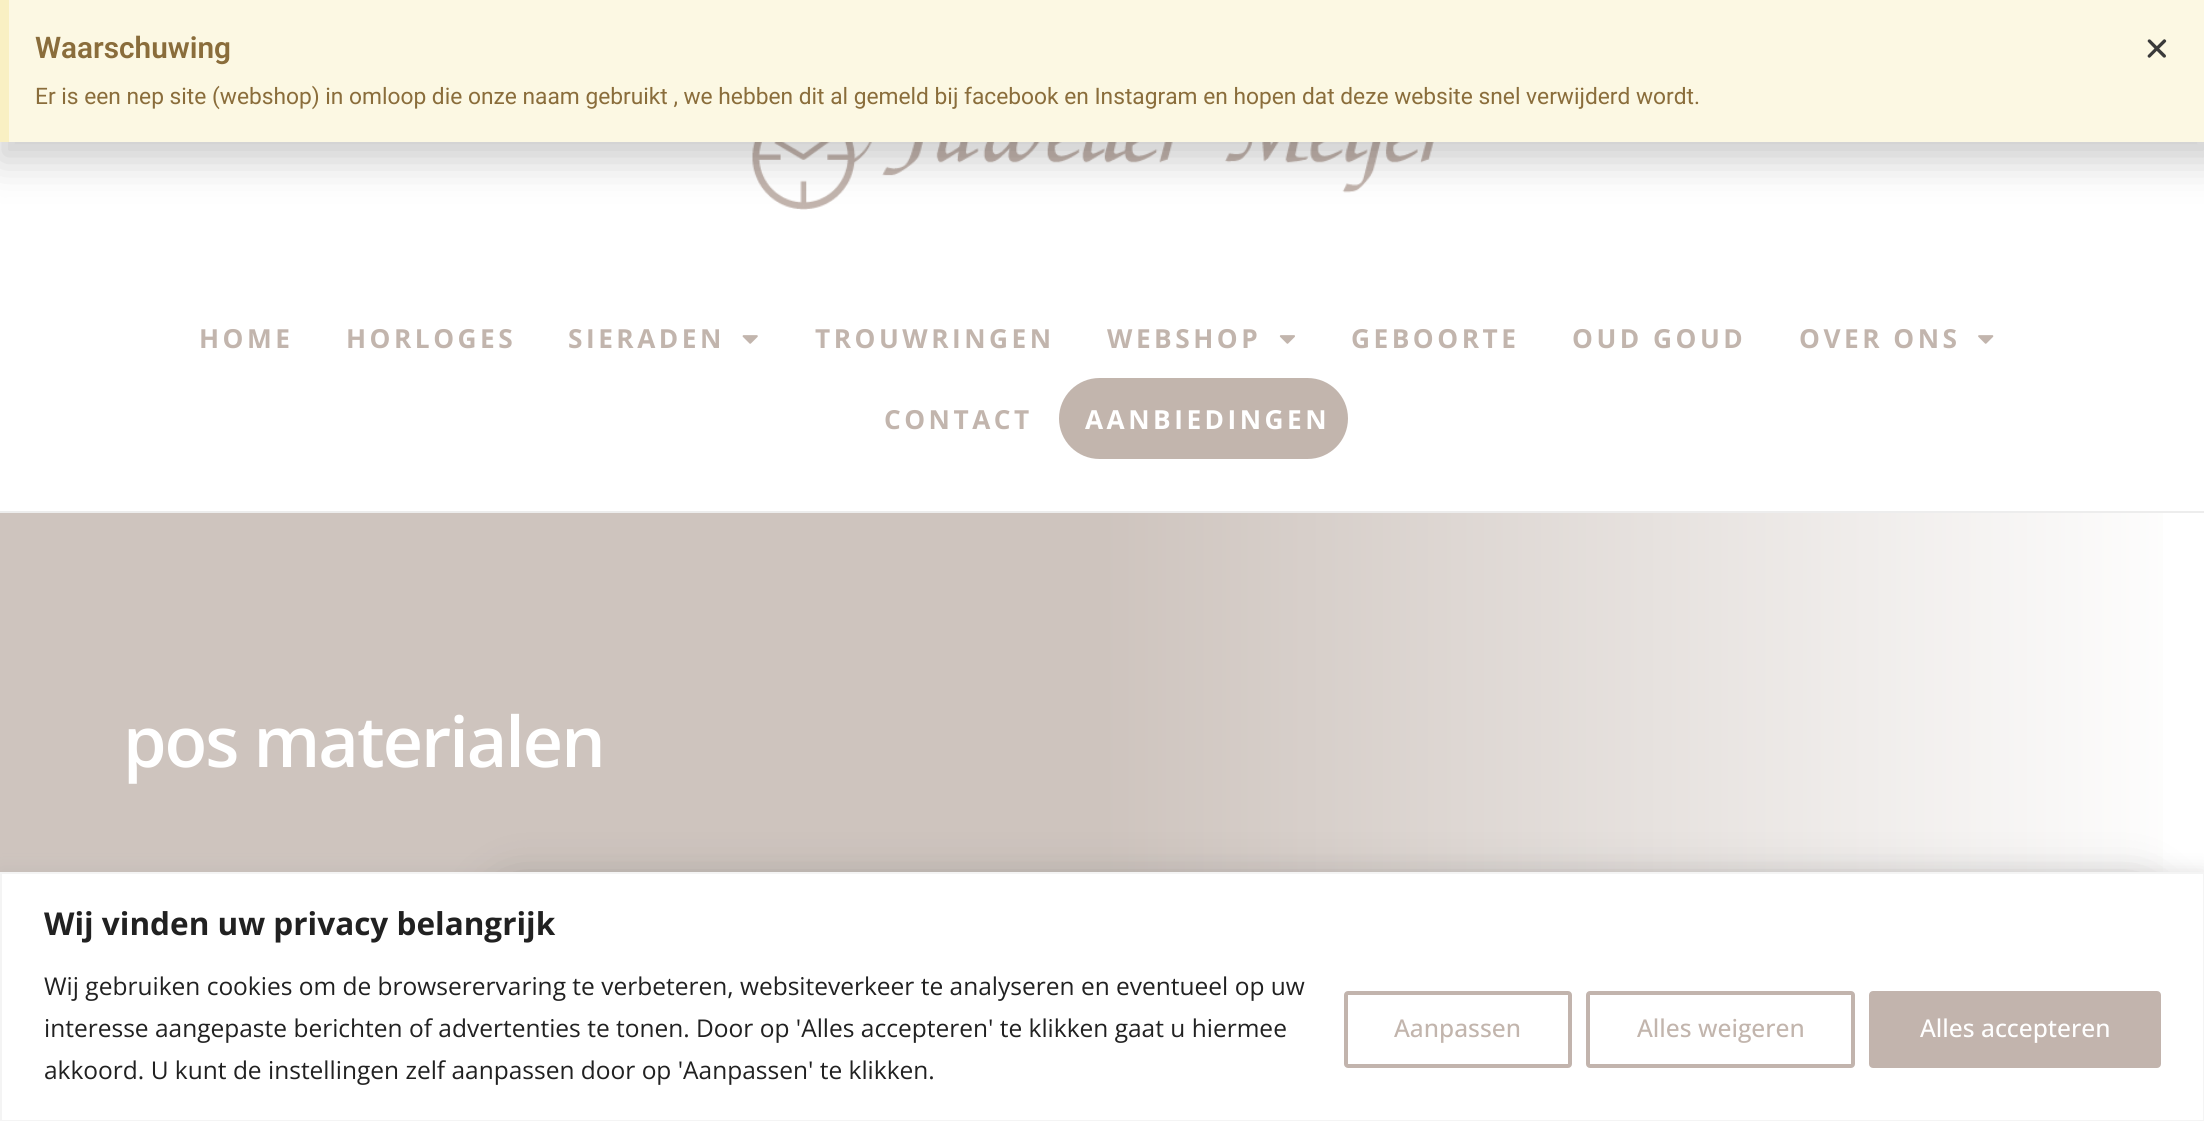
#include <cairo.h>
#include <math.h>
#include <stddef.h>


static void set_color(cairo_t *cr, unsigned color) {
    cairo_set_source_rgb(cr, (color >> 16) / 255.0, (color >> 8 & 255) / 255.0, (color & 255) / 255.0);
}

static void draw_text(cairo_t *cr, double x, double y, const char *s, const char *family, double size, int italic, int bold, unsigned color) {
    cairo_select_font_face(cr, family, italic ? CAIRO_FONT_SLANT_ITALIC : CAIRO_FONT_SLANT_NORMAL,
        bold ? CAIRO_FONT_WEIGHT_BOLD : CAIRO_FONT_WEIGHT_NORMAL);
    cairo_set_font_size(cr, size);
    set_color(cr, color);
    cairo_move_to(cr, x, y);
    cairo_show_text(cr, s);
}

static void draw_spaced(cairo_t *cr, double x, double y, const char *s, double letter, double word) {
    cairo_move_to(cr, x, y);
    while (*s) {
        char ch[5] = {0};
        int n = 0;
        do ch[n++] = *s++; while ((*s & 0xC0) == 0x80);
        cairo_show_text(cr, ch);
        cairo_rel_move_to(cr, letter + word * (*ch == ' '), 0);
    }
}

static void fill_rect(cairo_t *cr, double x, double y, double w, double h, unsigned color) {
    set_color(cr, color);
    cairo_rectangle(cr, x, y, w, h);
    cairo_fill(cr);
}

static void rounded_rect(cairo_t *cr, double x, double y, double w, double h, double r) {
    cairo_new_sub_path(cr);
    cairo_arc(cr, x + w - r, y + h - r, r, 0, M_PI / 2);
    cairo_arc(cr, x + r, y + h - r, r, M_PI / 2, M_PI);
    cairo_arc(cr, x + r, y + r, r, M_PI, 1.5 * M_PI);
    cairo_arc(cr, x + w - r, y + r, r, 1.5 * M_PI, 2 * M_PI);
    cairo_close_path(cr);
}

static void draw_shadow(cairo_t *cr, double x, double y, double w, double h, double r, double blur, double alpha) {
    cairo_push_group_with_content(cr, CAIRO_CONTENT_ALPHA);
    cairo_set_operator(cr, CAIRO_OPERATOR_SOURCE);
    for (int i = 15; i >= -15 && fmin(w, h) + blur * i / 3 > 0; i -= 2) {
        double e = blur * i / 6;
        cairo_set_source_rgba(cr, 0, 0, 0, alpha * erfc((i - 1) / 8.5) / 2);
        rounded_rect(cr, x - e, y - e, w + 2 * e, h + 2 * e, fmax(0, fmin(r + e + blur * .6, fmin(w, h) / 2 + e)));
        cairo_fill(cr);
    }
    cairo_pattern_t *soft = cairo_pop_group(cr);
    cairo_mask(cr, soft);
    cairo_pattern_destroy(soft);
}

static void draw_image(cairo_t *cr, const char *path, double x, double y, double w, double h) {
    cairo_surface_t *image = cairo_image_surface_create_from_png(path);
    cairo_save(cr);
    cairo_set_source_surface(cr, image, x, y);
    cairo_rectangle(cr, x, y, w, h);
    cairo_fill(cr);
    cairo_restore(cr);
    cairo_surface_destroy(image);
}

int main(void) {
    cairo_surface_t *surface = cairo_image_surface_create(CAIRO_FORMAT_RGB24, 2204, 1121);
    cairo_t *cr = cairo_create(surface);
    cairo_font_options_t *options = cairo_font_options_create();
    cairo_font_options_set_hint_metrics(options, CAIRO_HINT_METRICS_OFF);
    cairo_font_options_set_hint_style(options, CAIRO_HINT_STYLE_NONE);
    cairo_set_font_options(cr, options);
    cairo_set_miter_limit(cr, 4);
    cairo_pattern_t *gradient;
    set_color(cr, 0xFFFFFF);
    cairo_paint(cr);
    draw_image(cr, "assets/img2.png", 752, 142, 682, 68);
    set_color(cr, 0x000000);
    draw_shadow(cr, -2, 9, 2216, 152, 0, 20, 0.2);
    fill_rect(cr, 9, 0, 2195, 142, 0xFCF8E3);
    fill_rect(cr, 0, 0, 9, 142, 0xF9F0C3);
    draw_text(cr, 35, 58, "Waarschuwing", "Roboto SemiBold", 29.75, 0, 0, 0x8A6D3B);
    draw_text(cr, 35, 104, "Er is een nep site (webshop) in omloop die onze naam gebruikt , we hebben dit al gemeld bij facebook en Instagram en hopen dat deze website snel verwijderd wordt.", "Roboto", 22.75, 0, 0, 0x8A6D3B);
    draw_image(cr, "assets/img1.png", 2147, 39, 20, 19);
    fill_rect(cr, 0, 511, 2204, 2, 0xEDEDED);
    cairo_select_font_face(cr, "Open Sans", CAIRO_FONT_SLANT_NORMAL, CAIRO_FONT_WEIGHT_BOLD);
    cairo_set_font_size(cr, 26.25);
    set_color(cr, 0xC2B5AD);
    draw_spaced(cr, 199, 348, "HOME", 3.5, 0);
    draw_spaced(cr, 346, 348, "HORLOGES", 3.5, 0);
    draw_spaced(cr, 568, 348, "SIERADEN", 3.5, 0);
    draw_image(cr, "assets/img3.png", 742, 335, 16, 9);
    draw_spaced(cr, 815, 348, "TROUWRINGEN", 3.5, 0);
    draw_spaced(cr, 1107, 348, "WEBSHOP", 3.5, 0);
    draw_image(cr, "assets/img4.png", 1279, 335, 16, 9);
    draw_spaced(cr, 1351, 348, "GEBOORTE", 3.5, 0);
    draw_spaced(cr, 1572, 348, "OUD GOUD", 3.5, 0);
    draw_spaced(cr, 1799, 348, "OVER ONS", 3.5, 0);
    draw_image(cr, "assets/img5.png", 1978, 335, 16, 9);
    draw_spaced(cr, 884, 429, "CONTACT", 3.5, 0);
    rounded_rect(cr, 1059, 378, 289, 81, 40.5);
    cairo_fill(cr);
    set_color(cr, 0xFFFFFF);
    draw_spaced(cr, 1085, 429, "AANBIEDINGEN", 3.5, 0);
    gradient = cairo_pattern_create_linear(0, 740, 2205, 740);
    cairo_pattern_add_color_stop_rgba(gradient, 0.5, 0.808, 0.769, 0.745, 1);
    cairo_pattern_add_color_stop_rgba(gradient, 1, 1, 1, 1, 1);
    cairo_set_source(cr, gradient);
    cairo_pattern_destroy(gradient);
    cairo_rectangle(cr, 0, 513, 2163, 359);
    cairo_fill(cr);
    cairo_select_font_face(cr, "Open Sans SemiBold", CAIRO_FONT_SLANT_NORMAL, CAIRO_FONT_WEIGHT_NORMAL);
    cairo_set_font_size(cr, 70);
    set_color(cr, 0xFFFFFF);
    draw_spaced(cr, 123, 767, "pos materialen", -2, 0);
    set_color(cr, 0x000000);
    draw_shadow(cr, 483, 880, 1687, 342, 35, 22, 0.18);
    set_color(cr, 0xACABAB);
    draw_shadow(cr, 0, 870, 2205, 250, 0, 9, 0.3);
    set_color(cr, 0xFFFFFF);
    cairo_rectangle(cr, 1, 873, 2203, 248);
    cairo_fill_preserve(cr);
    set_color(cr, 0xF4F4F4);
    cairo_stroke(cr);
    draw_text(cr, 44, 935, "Wij vinden uw privacy belangrijk", "Open Sans", 31.5, 0, 1, 0x212121);
    draw_text(cr, 44, 995, "Wij gebruiken cookies om de browserervaring te verbeteren, websiteverkeer te analyseren en eventueel op uw", "Open Sans", 24.5, 0, 0, 0x212121);
    draw_text(cr, 44, 1037, "interesse aangepaste berichten of advertenties te tonen. Door op 'Alles accepteren' te klikken gaat u hiermee", "Open Sans", 24.5, 0, 0, 0x212121);
    draw_text(cr, 44, 1079, "akkoord. U kunt de instellingen zelf aanpassen door op 'Aanpassen' te klikken.", "Open Sans", 24.5, 0, 0, 0x212121);
    rounded_rect(cr, 1346, 993, 224, 73, 2);
    set_color(cr, 0xC2B4AD);
    cairo_set_line_width(cr, 4);
    cairo_stroke(cr);
    draw_text(cr, 1394, 1037, "Aanpassen", "Open Sans Medium", 24.5, 0, 0, 0xC2B5AD);
    rounded_rect(cr, 1588, 993, 265, 73, 2);
    set_color(cr, 0xC2B4AD);
    cairo_stroke(cr);
    draw_text(cr, 1637, 1037, "Alles weigeren", "Open Sans Medium", 24.5, 0, 0, 0xC2B5AD);
    set_color(cr, 0xC2B4AD);
    rounded_rect(cr, 1871, 993, 288, 73, 2);
    cairo_fill_preserve(cr);
    cairo_stroke(cr);
    draw_text(cr, 1920, 1037, "Alles accepteren", "Open Sans Medium", 24.5, 0, 0, 0xFFFFFF);
    cairo_surface_write_to_png(surface, "output.png");
    cairo_font_options_destroy(options);
    cairo_destroy(cr);
    cairo_surface_destroy(surface);
    return 0;
}
